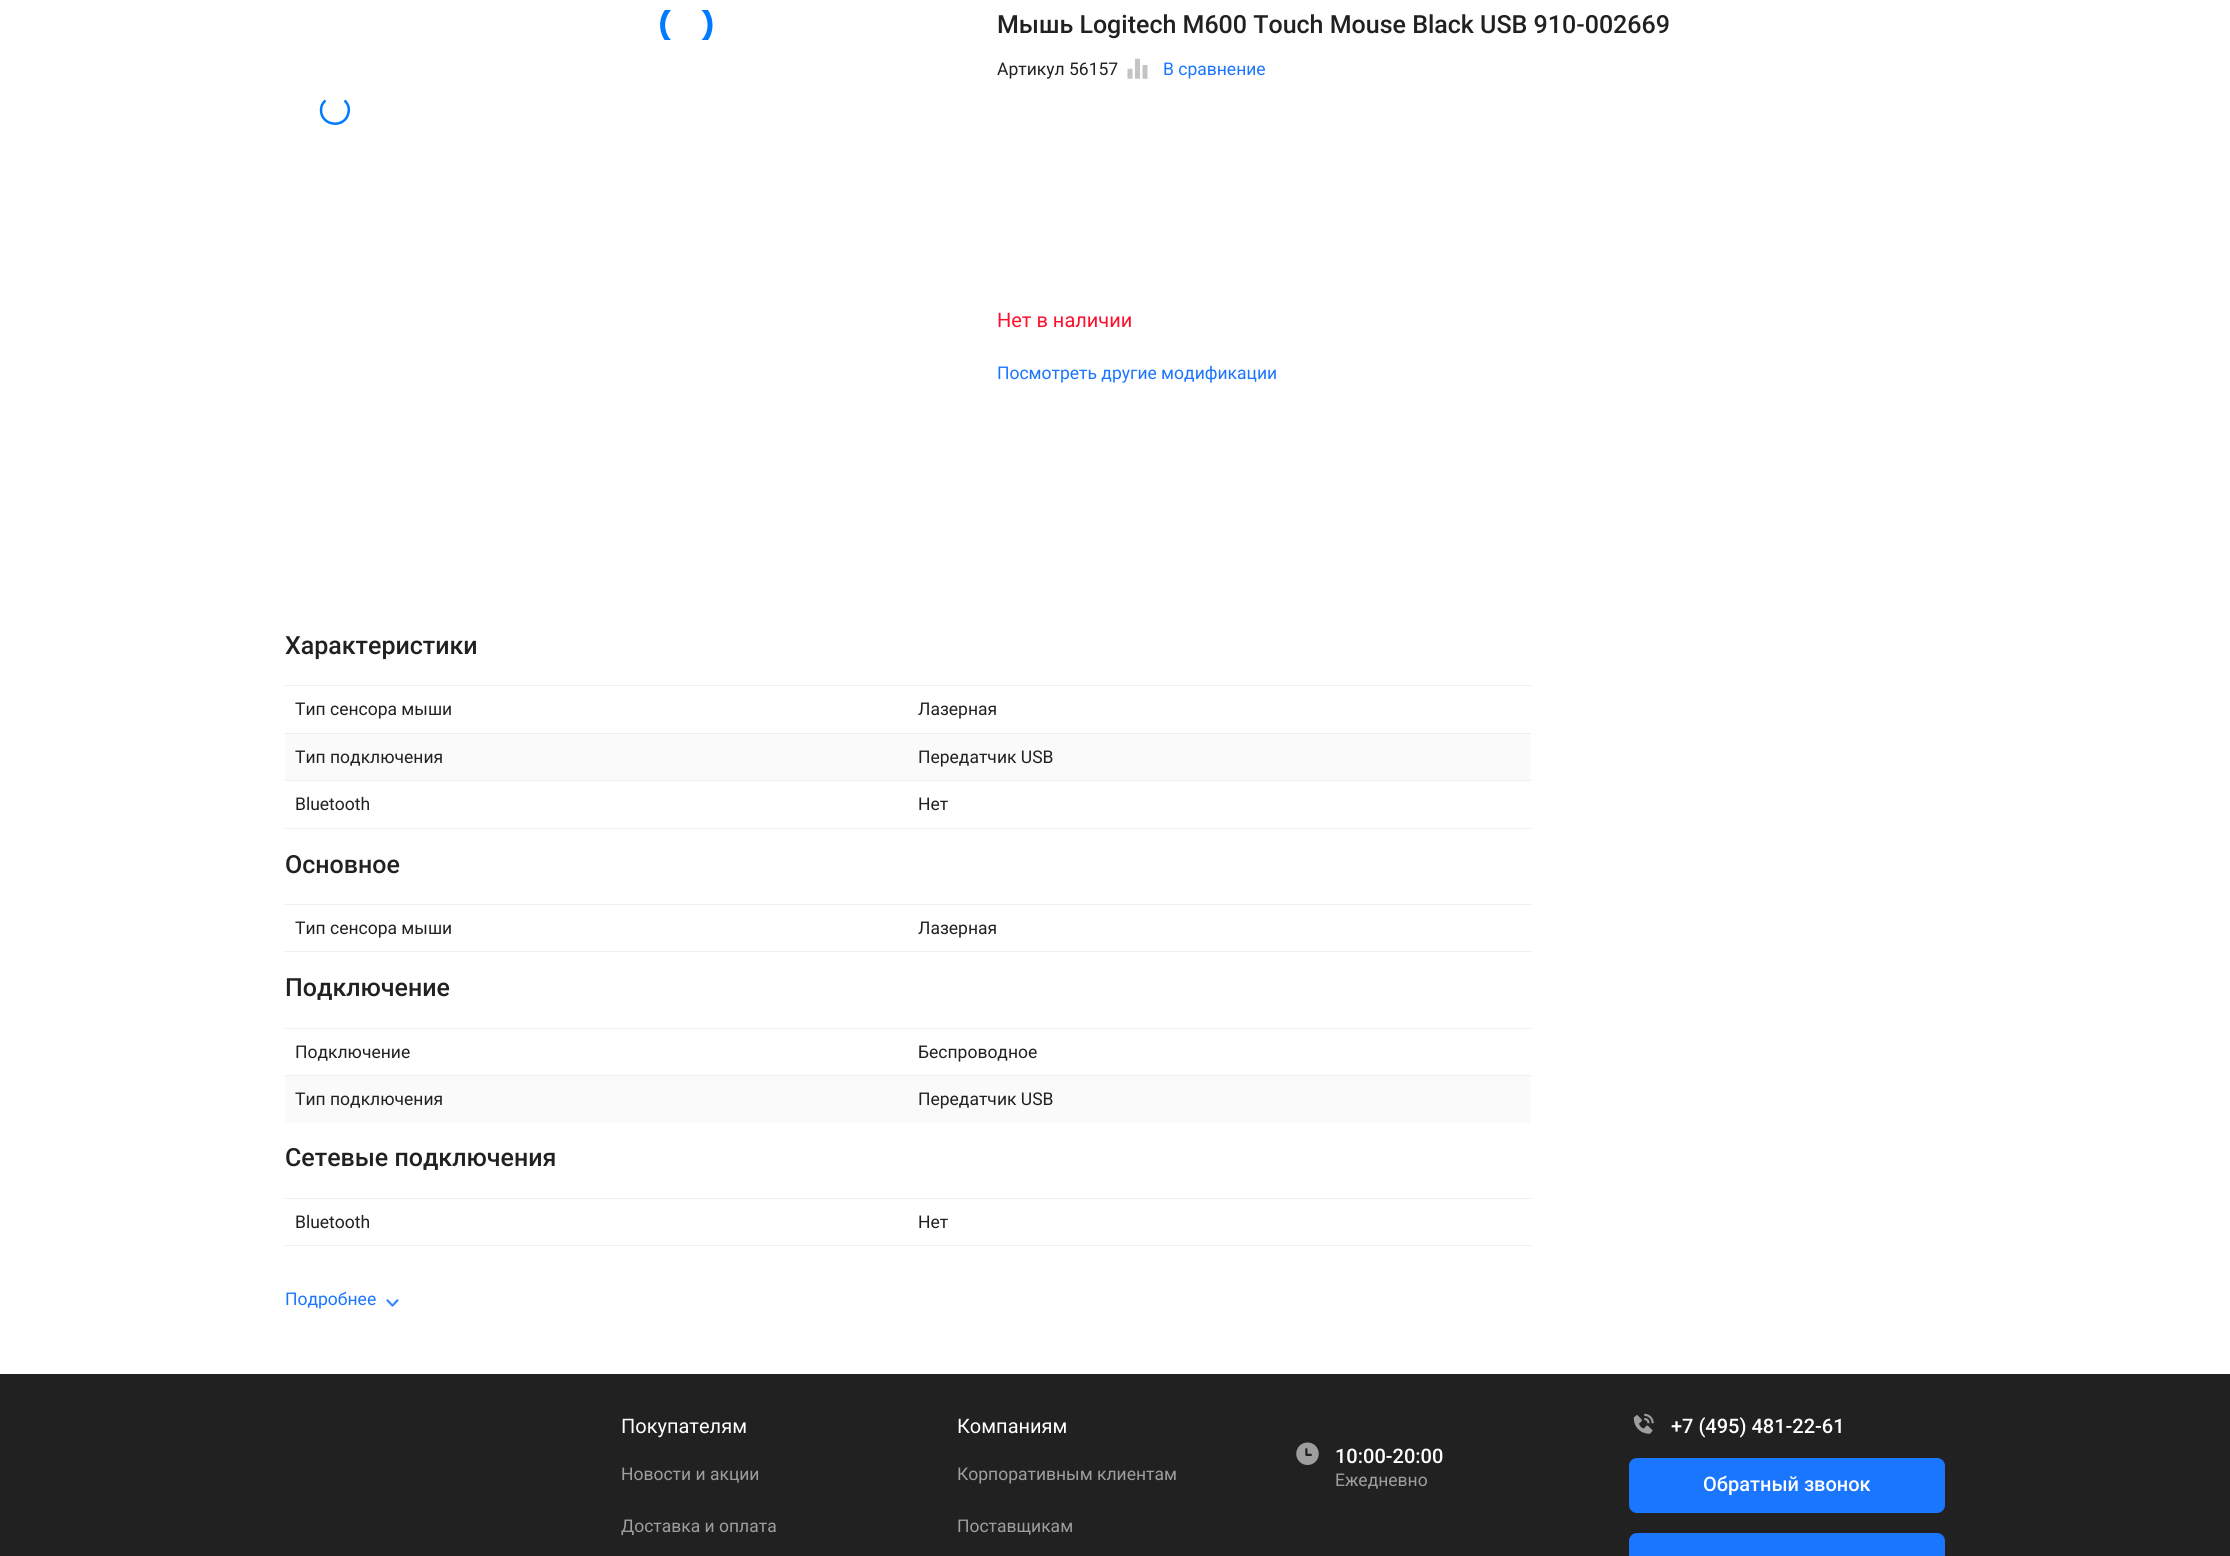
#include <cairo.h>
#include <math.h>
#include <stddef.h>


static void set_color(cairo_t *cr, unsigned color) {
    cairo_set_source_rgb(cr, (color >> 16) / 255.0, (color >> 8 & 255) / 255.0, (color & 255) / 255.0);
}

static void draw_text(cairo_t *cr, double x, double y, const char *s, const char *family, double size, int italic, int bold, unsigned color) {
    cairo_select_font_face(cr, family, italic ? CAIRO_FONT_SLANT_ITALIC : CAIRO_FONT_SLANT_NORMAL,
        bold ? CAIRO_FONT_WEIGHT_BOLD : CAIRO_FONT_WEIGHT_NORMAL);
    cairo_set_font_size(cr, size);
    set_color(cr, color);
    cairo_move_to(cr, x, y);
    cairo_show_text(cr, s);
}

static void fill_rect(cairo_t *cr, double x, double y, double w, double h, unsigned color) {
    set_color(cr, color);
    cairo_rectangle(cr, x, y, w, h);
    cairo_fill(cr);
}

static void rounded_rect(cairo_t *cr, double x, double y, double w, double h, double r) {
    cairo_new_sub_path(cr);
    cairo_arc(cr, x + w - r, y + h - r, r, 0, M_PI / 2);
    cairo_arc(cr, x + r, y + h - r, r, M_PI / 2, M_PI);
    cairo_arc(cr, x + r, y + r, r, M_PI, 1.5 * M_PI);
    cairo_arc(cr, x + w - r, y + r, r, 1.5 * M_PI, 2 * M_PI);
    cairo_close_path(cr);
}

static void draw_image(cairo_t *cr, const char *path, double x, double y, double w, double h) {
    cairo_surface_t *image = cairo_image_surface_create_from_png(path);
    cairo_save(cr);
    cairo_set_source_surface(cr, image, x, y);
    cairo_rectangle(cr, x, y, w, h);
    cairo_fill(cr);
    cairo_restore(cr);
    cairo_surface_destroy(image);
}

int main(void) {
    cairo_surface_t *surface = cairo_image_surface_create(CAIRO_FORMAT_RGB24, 2230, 1556);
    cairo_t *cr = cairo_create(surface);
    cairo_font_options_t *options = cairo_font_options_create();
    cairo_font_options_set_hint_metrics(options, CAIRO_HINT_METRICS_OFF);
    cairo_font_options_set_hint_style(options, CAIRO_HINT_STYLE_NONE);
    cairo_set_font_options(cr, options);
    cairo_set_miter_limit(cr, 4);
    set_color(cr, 0xFFFFFF);
    cairo_paint(cr);
    cairo_save(cr);
    cairo_rectangle(cr, 405, 10, 561, 30);
    cairo_clip(cr);
    cairo_new_path(cr);
    cairo_move_to(cr, 703, 8);
    cairo_curve_to(cr, 707.5, 12.5, 710, 18.5, 710, 25);
    cairo_curve_to(cr, 710, 53.5, 668.5, 57.5, 663, 29.5);
    cairo_curve_to(cr, 661.5, 22, 664, 14, 669.5, 8);
    set_color(cr, 0x007AFF);
    cairo_set_line_width(cr, 5);
    cairo_stroke(cr);
    cairo_restore(cr);
    cairo_new_path(cr);
    cairo_move_to(cr, 344.5, 100.5);
    cairo_curve_to(cr, 348, 103.5, 349.5, 108, 348.5, 112.5);
    cairo_curve_to(cr, 345.5, 129, 321, 126.5, 321, 110);
    cairo_curve_to(cr, 321, 106.5, 322.5, 103, 325.5, 100.5);
    set_color(cr, 0x007AFF);
    cairo_set_line_width(cr, 2.5);
    cairo_stroke(cr);
    draw_text(cr, 997, 33, "Мышь Logitech M600 Touch Mouse Black USB 910-002669", "Roboto Medium", 25, 0, 0, 0x212121);
    draw_text(cr, 997, 75, "Артикул 56157", "Roboto", 17.5, 0, 0, 0x212121);
    draw_image(cr, "assets/img1.png", 1127, 58, 21, 21);
    draw_text(cr, 1163, 75, "В сравнение", "Roboto", 17.5, 0, 0, 0x1A75FF);
    draw_text(cr, 997, 327, "Нет в наличии", "Roboto", 20, 0, 0, 0xFC102C);
    draw_text(cr, 997, 379, "Посмотреть другие модификации", "Roboto", 17.5, 0, 0, 0x1A75FF);
    draw_text(cr, 285, 654, "Характеристики", "Roboto Medium", 25, 0, 0, 0x212121);
    fill_rect(cr, 285, 685, 1246, 1, 0xEEEEEE);
    draw_text(cr, 295, 715, "Тип сенсора мыши", "Roboto", 17.5, 0, 0, 0x212121);
    draw_text(cr, 918, 715, "Лазерная", "Roboto", 17.5, 0, 0, 0x212121);
    fill_rect(cr, 285, 734, 1245, 46, 0xFAFAFA);
    fill_rect(cr, 285, 733, 1246, 1, 0xEEEEEE);
    draw_text(cr, 295, 763, "Тип подключения", "Roboto", 17.5, 0, 0, 0x212121);
    draw_text(cr, 918, 763, "Передатчик USB", "Roboto", 17.5, 0, 0, 0x212121);
    fill_rect(cr, 285, 780, 1246, 1, 0xEEEEEE);
    fill_rect(cr, 285, 828, 1246, 1, 0xEEEEEE);
    draw_text(cr, 295, 810, "Bluetooth", "Roboto", 17.5, 0, 0, 0x212121);
    draw_text(cr, 918, 810, "Нет", "Roboto", 17.5, 0, 0, 0x212121);
    draw_text(cr, 285, 873, "Основное", "Roboto Medium", 25, 0, 0, 0x212121);
    fill_rect(cr, 285, 904, 1246, 1, 0xEEEEEE);
    fill_rect(cr, 285, 951, 1246, 1, 0xEEEEEE);
    draw_text(cr, 295, 934, "Тип сенсора мыши", "Roboto", 17.5, 0, 0, 0x212121);
    draw_text(cr, 918, 934, "Лазерная", "Roboto", 17.5, 0, 0, 0x212121);
    draw_text(cr, 285, 996, "Подключение", "Roboto Medium", 25, 0, 0, 0x212121);
    fill_rect(cr, 285, 1028, 1246, 1, 0xEEEEEE);
    draw_text(cr, 295, 1058, "Подключение", "Roboto", 17.5, 0, 0, 0x212121);
    draw_text(cr, 918, 1058, "Беспроводное", "Roboto", 17.5, 0, 0, 0x212121);
    fill_rect(cr, 285, 1076, 1245, 47, 0xFAFAFA);
    fill_rect(cr, 285, 1075, 1246, 1, 0xEEEEEE);
    draw_text(cr, 295, 1105, "Тип подключения", "Roboto", 17.5, 0, 0, 0x212121);
    draw_text(cr, 918, 1105, "Передатчик USB", "Roboto", 17.5, 0, 0, 0x212121);
    draw_text(cr, 285, 1166, "Сетевые подключения", "Roboto Medium", 25, 0, 0, 0x212121);
    fill_rect(cr, 285, 1198, 1246, 1, 0xEEEEEE);
    fill_rect(cr, 285, 1245, 1246, 1, 0xEEEEEE);
    draw_text(cr, 295, 1228, "Bluetooth", "Roboto", 17.5, 0, 0, 0x212121);
    draw_text(cr, 918, 1228, "Нет", "Roboto", 17.5, 0, 0, 0x212121);
    draw_text(cr, 285, 1305, "Подробнее", "Roboto", 17.5, 0, 0, 0x1A75FF);
    draw_image(cr, "assets/img2.png", 386, 1299, 13, 8);
    fill_rect(cr, 0, 1374, 2230, 182, 0x212121);
    draw_text(cr, 621, 1433, "Покупателям", "Roboto", 20, 0, 0, 0xFFFFFF);
    draw_text(cr, 621, 1480, "Новости и акции", "Roboto", 17.5, 0, 0, 0x9E9E9E);
    draw_text(cr, 621, 1532, "Доставка и оплата", "Roboto", 17.5, 0, 0, 0x9E9E9E);
    draw_text(cr, 957, 1433, "Компаниям", "Roboto", 20, 0, 0, 0xFFFFFF);
    draw_text(cr, 957, 1480, "Корпоративным клиентам", "Roboto", 17.5, 0, 0, 0x9E9E9E);
    draw_text(cr, 957, 1532, "Поставщикам", "Roboto", 17.5, 0, 0, 0x9E9E9E);
    draw_image(cr, "assets/img3.png", 1296, 1442, 23, 23);
    draw_text(cr, 1335, 1463, "10:00-20:00", "Roboto Medium", 20, 0, 0, 0xFFFFFF);
    draw_text(cr, 1335, 1486, "Ежедневно", "Roboto", 17.5, 0, 0, 0x9E9E9E);
    draw_image(cr, "assets/img4.png", 1633, 1413, 21, 21);
    draw_text(cr, 1671, 1433, "+7 (495) 481-22-61", "Roboto Medium", 20, 0, 0, 0xFFFFFF);
    set_color(cr, 0x1A75FF);
    rounded_rect(cr, 1629, 1458, 316, 55, 8);
    cairo_fill(cr);
    draw_text(cr, 1703, 1491, "Обратный звонок", "Roboto Medium", 20, 0, 0, 0xFFFFFF);
    set_color(cr, 0x1A75FF);
    rounded_rect(cr, 1629, 1533, 316, 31, 8);
    cairo_fill(cr);
    cairo_surface_write_to_png(surface, "output.png");
    cairo_font_options_destroy(options);
    cairo_destroy(cr);
    cairo_surface_destroy(surface);
    return 0;
}
